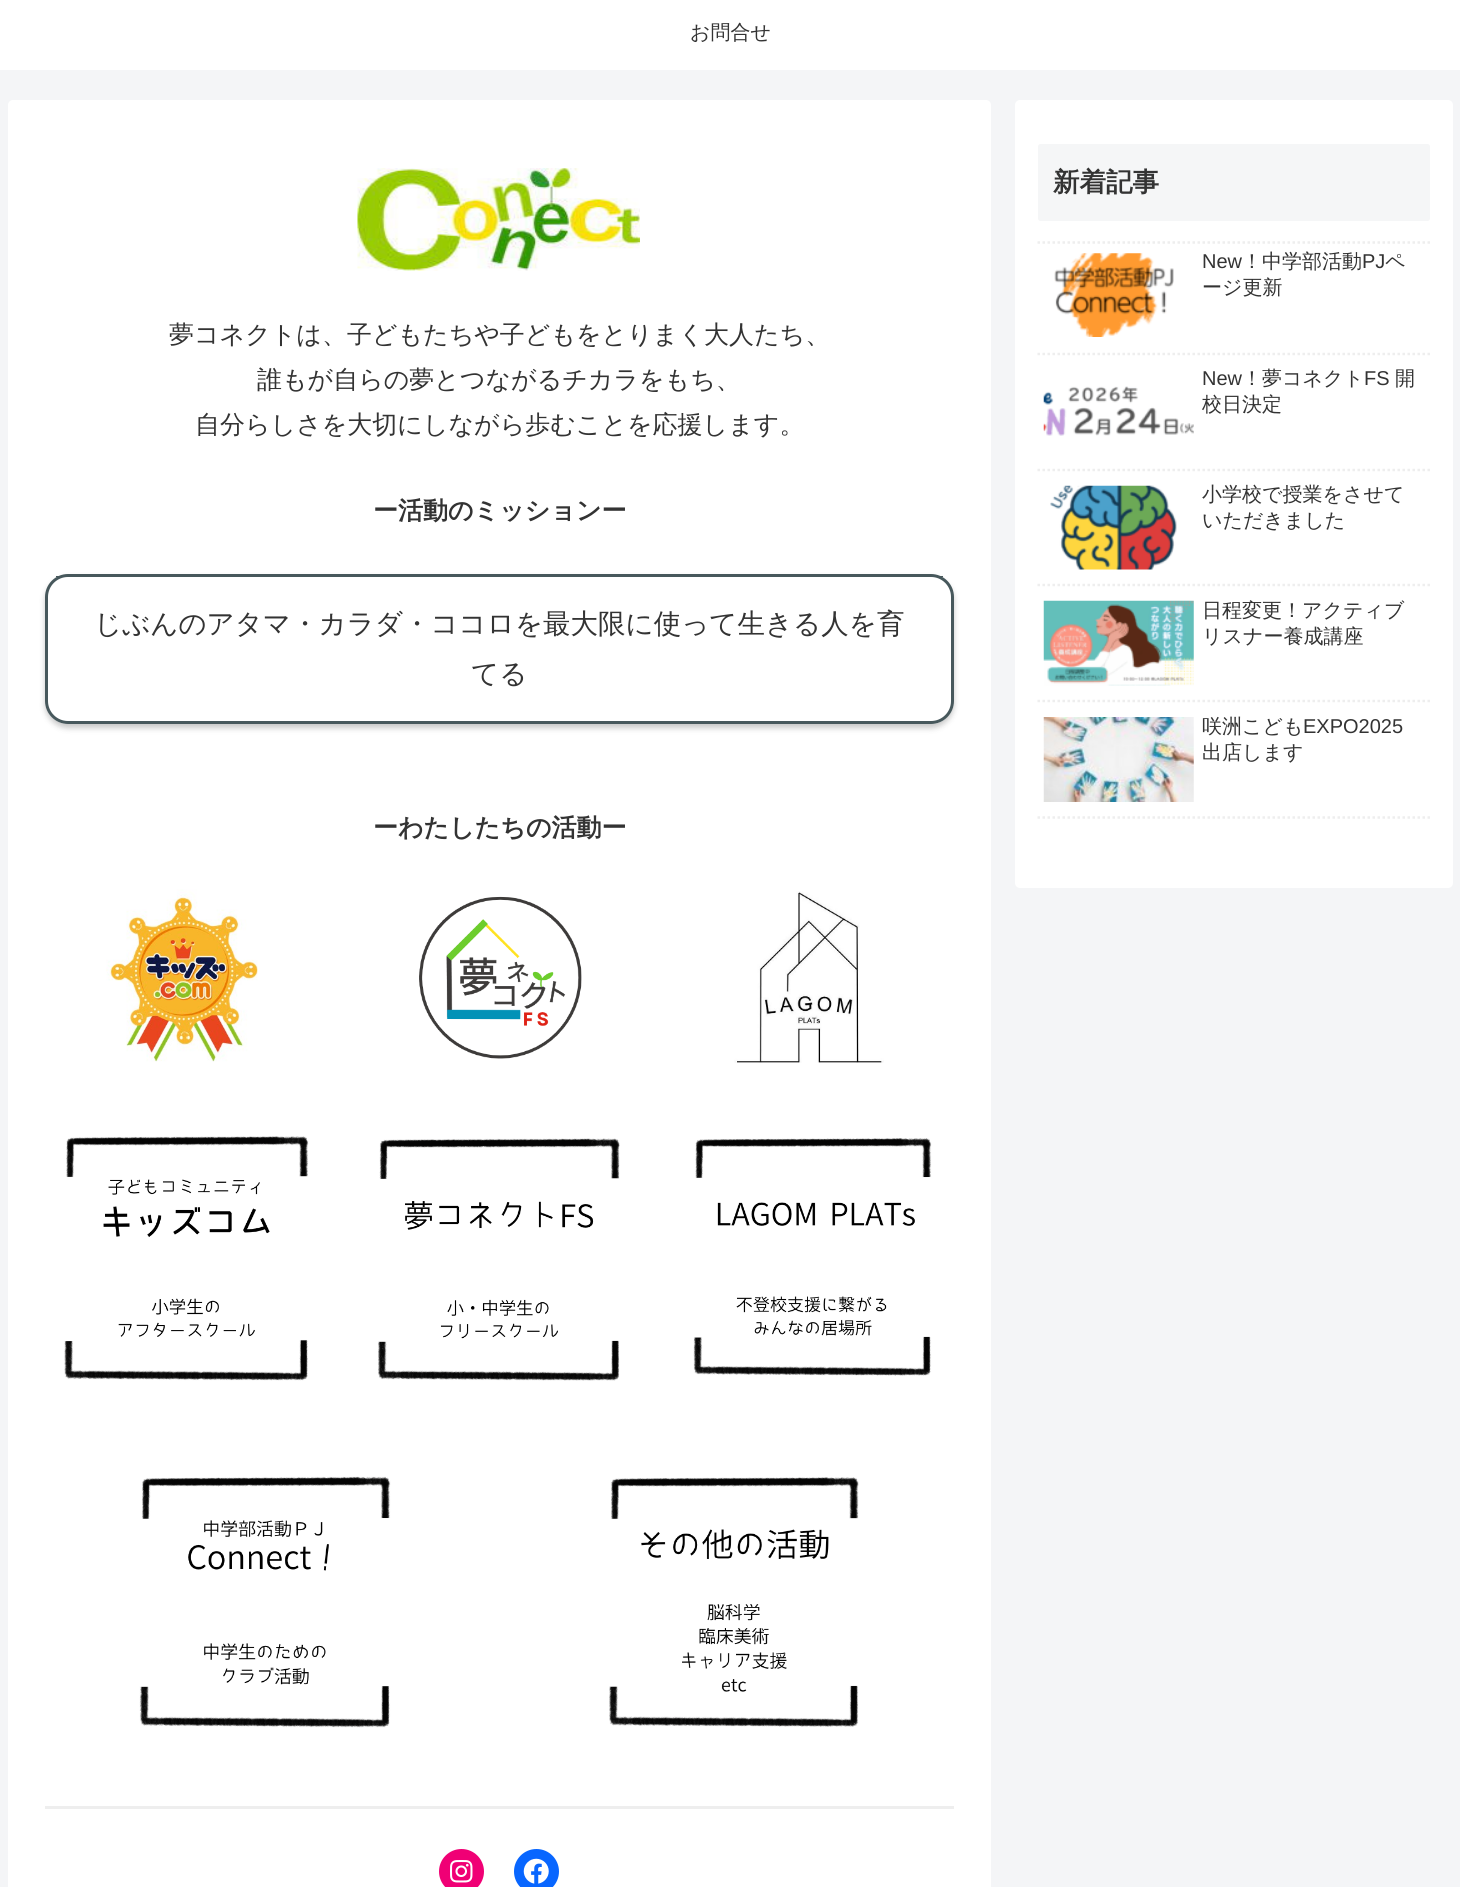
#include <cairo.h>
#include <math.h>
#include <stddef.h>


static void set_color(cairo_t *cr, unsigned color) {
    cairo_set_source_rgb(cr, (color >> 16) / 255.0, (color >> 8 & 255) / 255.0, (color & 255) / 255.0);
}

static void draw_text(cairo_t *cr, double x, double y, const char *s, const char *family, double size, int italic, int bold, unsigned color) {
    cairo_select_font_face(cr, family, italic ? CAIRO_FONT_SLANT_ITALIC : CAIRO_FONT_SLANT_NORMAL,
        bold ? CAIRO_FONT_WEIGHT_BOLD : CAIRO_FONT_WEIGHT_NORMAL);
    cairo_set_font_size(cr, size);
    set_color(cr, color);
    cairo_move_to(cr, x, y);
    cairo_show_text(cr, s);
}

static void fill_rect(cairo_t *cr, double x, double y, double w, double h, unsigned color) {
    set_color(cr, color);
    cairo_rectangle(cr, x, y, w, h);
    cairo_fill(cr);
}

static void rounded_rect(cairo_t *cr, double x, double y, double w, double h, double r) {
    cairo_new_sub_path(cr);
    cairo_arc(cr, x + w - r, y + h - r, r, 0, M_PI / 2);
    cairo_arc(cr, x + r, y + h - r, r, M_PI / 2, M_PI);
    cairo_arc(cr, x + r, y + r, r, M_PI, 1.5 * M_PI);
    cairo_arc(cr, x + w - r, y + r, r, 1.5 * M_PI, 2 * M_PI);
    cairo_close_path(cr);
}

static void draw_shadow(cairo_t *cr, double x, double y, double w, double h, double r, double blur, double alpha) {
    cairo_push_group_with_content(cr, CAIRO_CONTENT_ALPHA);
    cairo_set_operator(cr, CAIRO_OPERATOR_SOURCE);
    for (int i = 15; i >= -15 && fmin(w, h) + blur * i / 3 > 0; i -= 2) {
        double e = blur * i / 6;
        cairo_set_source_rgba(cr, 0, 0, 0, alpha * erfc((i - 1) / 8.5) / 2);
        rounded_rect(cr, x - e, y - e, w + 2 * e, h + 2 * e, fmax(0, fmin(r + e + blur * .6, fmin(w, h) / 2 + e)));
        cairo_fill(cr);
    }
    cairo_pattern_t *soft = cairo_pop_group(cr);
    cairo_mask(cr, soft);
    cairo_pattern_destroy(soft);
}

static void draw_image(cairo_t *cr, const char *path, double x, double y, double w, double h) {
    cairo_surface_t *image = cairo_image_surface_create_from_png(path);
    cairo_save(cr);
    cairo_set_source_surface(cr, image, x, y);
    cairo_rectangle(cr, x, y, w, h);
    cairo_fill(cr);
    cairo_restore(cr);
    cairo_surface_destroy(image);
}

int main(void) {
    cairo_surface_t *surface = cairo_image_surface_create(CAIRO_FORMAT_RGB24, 1460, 1887);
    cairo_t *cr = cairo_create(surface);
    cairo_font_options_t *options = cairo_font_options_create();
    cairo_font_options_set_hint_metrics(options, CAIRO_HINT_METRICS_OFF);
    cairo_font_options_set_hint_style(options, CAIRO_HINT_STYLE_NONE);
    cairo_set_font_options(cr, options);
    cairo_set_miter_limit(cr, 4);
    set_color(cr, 0xF4F5F7);
    cairo_paint(cr);
    fill_rect(cr, 0, 0, 1460, 70, 0xFFFFFF);
    draw_text(cr, 690, 39, "お問合せ", "WenQuanYi Zen Hei Medium", 20, 0, 0, 0x333333);
    set_color(cr, 0xFFFFFF);
    rounded_rect(cr, 8, 100, 983, 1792, 5);
    cairo_fill(cr);
    draw_image(cr, "assets/img1.png", 357, 168, 283, 103);
    draw_text(cr, 169, 343, "夢コネクトは、子どもたちや子どもをとりまく大人たち、", "WenQuanYi Zen Hei Medium", 25, 0, 0, 0x333333);
    draw_text(cr, 257, 388, "誰もが自らの夢とつながるチカラをもち、", "WenQuanYi Zen Hei Medium", 25, 0, 0, 0x333333);
    draw_text(cr, 195, 433, "自分らしさを大切にしながら歩むことを応援します。", "WenQuanYi Zen Hei Medium", 25, 0, 0, 0x333333);
    draw_text(cr, 373, 519, "ー活動のミッションー", "WenQuanYi Zen Hei", 25, 0, 1, 0x333333);
    cairo_save(cr);
    cairo_set_fill_rule(cr, CAIRO_FILL_RULE_EVEN_ODD);
    cairo_new_path(cr);
    cairo_move_to(cr, 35, 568);
    cairo_line_to(cr, 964, 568);
    cairo_line_to(cr, 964, 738);
    cairo_line_to(cr, 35, 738);
    cairo_close_path(cr);
    cairo_move_to(cr, 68, 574);
    cairo_line_to(cr, 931, 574);
    cairo_curve_to(cr, 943.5, 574, 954, 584.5, 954, 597);
    cairo_line_to(cr, 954, 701);
    cairo_curve_to(cr, 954, 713.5, 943.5, 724, 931, 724);
    cairo_line_to(cr, 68, 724);
    cairo_curve_to(cr, 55.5, 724, 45, 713.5, 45, 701);
    cairo_line_to(cr, 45, 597);
    cairo_curve_to(cr, 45, 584.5, 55.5, 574, 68, 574);
    cairo_close_path(cr);
    cairo_clip(cr);
    set_color(cr, 0x000000);
    draw_shadow(cr, 45, 578, 909, 150, 23, 3, 0.22);
    cairo_restore(cr);
    rounded_rect(cr, 46.5, 575.5, 906, 147, 21.5);
    set_color(cr, 0x47585C);
    cairo_set_line_width(cr, 3);
    cairo_stroke(cr);
    fill_rect(cr, 56, 576, 887, 1, 0x47585C);
    draw_text(cr, 94, 633, "じぶんのアタマ・カラダ・ココロを最大限に使って生きる人を育", "WenQuanYi Zen Hei Medium", 27.5, 0, 0, 0x333333);
    draw_text(cr, 471, 683, "てる", "WenQuanYi Zen Hei Medium", 27.5, 0, 0, 0x333333);
    draw_text(cr, 373, 836, "ーわたしたちの活動ー", "WenQuanYi Zen Hei", 25, 0, 1, 0x333333);
    draw_image(cr, "assets/img2.png", 106, 889, 152, 173);
    draw_image(cr, "assets/img3.png", 64, 1136, 245, 245);
    draw_image(cr, "assets/img4.png", 419, 896, 163, 163);
    draw_image(cr, "assets/img5.png", 378, 1138, 242, 243);
    draw_image(cr, "assets/img6.png", 734, 891, 150, 172);
    draw_image(cr, "assets/img7.png", 693, 1138, 239, 238);
    draw_image(cr, "assets/img8.png", 139, 1476, 252, 252);
    draw_image(cr, "assets/img9.png", 609, 1477, 250, 250);
    fill_rect(cr, 45, 1806, 909, 3, 0xEEEEEE);
    set_color(cr, 0xF00075);
    cairo_arc(cr, 461.5, 1871.5, 22.5, 0, 2 * M_PI);
    cairo_fill(cr);
    draw_image(cr, "assets/img10.png", 450, 1860, 23, 23);
    set_color(cr, 0x0866FF);
    cairo_arc(cr, 536.5, 1871.5, 22.5, 0, 2 * M_PI);
    cairo_fill(cr);
    draw_image(cr, "assets/img11.png", 523, 1858, 26, 26);
    set_color(cr, 0xFFFFFF);
    rounded_rect(cr, 1015, 100, 438, 788, 5);
    cairo_fill(cr);
    set_color(cr, 0xF5F6F7);
    rounded_rect(cr, 1038, 144, 392, 77, 2.5);
    cairo_fill(cr);
    draw_text(cr, 1053, 191, "新着記事", "WenQuanYi Zen Hei", 26.5, 0, 1, 0x333333);
    cairo_new_path(cr);
    cairo_move_to(cr, 1037.5, 242.5);
    cairo_line_to(cr, 1430, 242.5);
    set_color(cr, 0xEEEEEE);
    cairo_set_line_width(cr, 2.5);
    cairo_set_dash(cr, (double[]){2.5, 2.5}, 2, 0);
    cairo_stroke(cr);
    cairo_new_path(cr);
    cairo_move_to(cr, 1037.5, 354);
    cairo_line_to(cr, 1430, 354);
    cairo_stroke(cr);
    draw_image(cr, "assets/img12.png", 1054, 253, 120, 84);
    draw_text(cr, 1202, 268, "New", "Liberation Sans", 20, 0, 0, 0x333333);
    draw_text(cr, 1242, 268, "！中学部活動", "WenQuanYi Zen Hei Medium", 20, 0, 0, 0x333333);
    draw_text(cr, 1362, 268, "PJ", "Liberation Sans", 20, 0, 0, 0x333333);
    draw_text(cr, 1385, 268, "ペ", "WenQuanYi Zen Hei Medium", 20, 0, 0, 0x333333);
    draw_text(cr, 1202, 294, "ージ更新", "WenQuanYi Zen Hei Medium", 20, 0, 0, 0x333333);
    cairo_new_path(cr);
    cairo_move_to(cr, 1037.5, 470);
    cairo_line_to(cr, 1430, 470);
    set_color(cr, 0xEEEEEE);
    cairo_stroke(cr);
    draw_image(cr, "assets/img13.png", 1043, 386, 151, 50);
    draw_text(cr, 1202, 385, "New", "Liberation Sans", 20, 0, 0, 0x333333);
    draw_text(cr, 1242, 385, "！夢コネクト", "WenQuanYi Zen Hei Medium", 20, 0, 0, 0x333333);
    draw_text(cr, 1364, 385, "FS", "Liberation Sans", 20, 0, 0, 0x333333);
    draw_text(cr, 1395, 385, "開", "WenQuanYi Zen Hei Medium", 20, 0, 0, 0x333333);
    draw_text(cr, 1202, 411, "校日決定", "WenQuanYi Zen Hei Medium", 20, 0, 0, 0x333333);
    cairo_new_path(cr);
    cairo_move_to(cr, 1037.5, 585);
    cairo_line_to(cr, 1430, 585);
    set_color(cr, 0xEEEEEE);
    cairo_stroke(cr);
    draw_image(cr, "assets/img14.png", 1050, 485, 127, 85);
    draw_text(cr, 1202, 501, "小学校で授業をさせて", "WenQuanYi Zen Hei Medium", 20, 0, 0, 0x333333);
    draw_text(cr, 1202, 527, "いただきました", "WenQuanYi Zen Hei Medium", 20, 0, 0, 0x333333);
    cairo_new_path(cr);
    cairo_move_to(cr, 1037.5, 701);
    cairo_line_to(cr, 1430, 701);
    set_color(cr, 0xEEEEEE);
    cairo_stroke(cr);
    draw_image(cr, "assets/img15.png", 1043, 600, 151, 86);
    draw_text(cr, 1202, 617, "日程変更！アクティブ", "WenQuanYi Zen Hei Medium", 20, 0, 0, 0x333333);
    draw_text(cr, 1202, 643, "リスナー養成講座", "WenQuanYi Zen Hei Medium", 20, 0, 0, 0x333333);
    cairo_new_path(cr);
    cairo_move_to(cr, 1037.5, 817.5);
    cairo_line_to(cr, 1430, 817.5);
    set_color(cr, 0xEEEEEE);
    cairo_stroke(cr);
    draw_image(cr, "assets/img16.png", 1043, 717, 151, 85);
    draw_text(cr, 1202, 733, "咲洲こども", "WenQuanYi Zen Hei Medium", 20, 0, 0, 0x333333);
    draw_text(cr, 1303, 733, "EXPO2025", "Liberation Sans", 20, 0, 0, 0x333333);
    draw_text(cr, 1202, 759, "出店します", "WenQuanYi Zen Hei Medium", 20, 0, 0, 0x333333);
    cairo_surface_write_to_png(surface, "output.png");
    cairo_font_options_destroy(options);
    cairo_destroy(cr);
    cairo_surface_destroy(surface);
    return 0;
}
